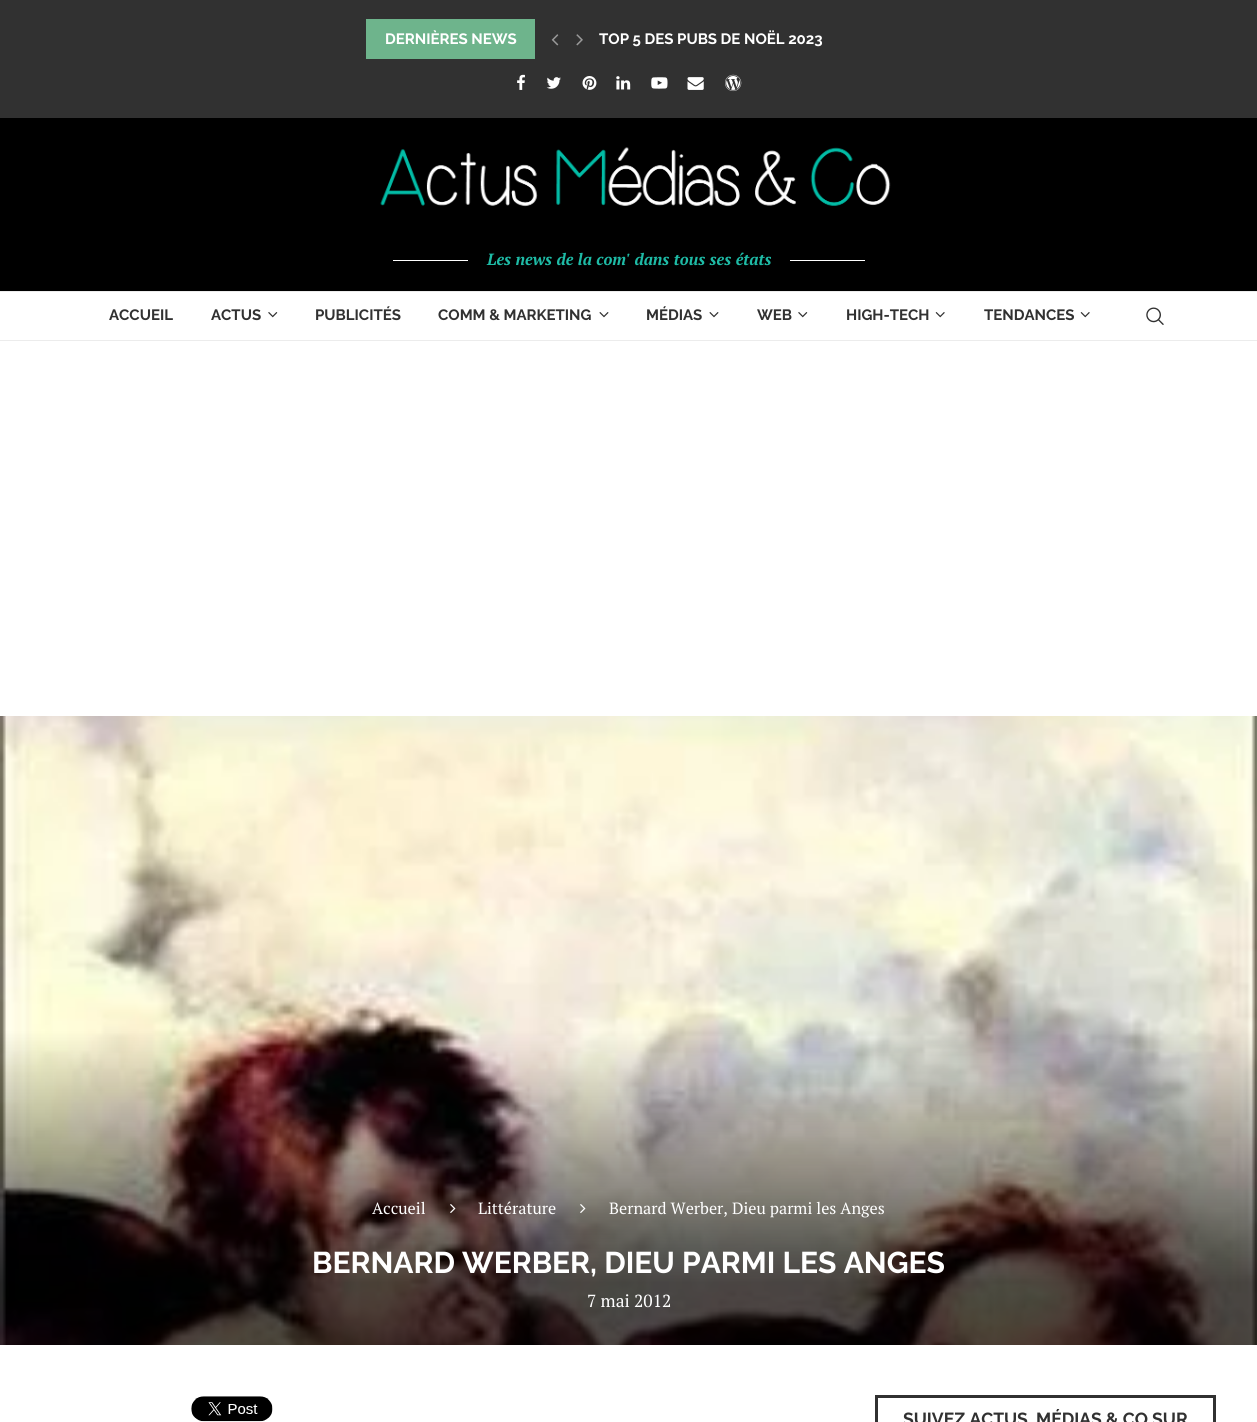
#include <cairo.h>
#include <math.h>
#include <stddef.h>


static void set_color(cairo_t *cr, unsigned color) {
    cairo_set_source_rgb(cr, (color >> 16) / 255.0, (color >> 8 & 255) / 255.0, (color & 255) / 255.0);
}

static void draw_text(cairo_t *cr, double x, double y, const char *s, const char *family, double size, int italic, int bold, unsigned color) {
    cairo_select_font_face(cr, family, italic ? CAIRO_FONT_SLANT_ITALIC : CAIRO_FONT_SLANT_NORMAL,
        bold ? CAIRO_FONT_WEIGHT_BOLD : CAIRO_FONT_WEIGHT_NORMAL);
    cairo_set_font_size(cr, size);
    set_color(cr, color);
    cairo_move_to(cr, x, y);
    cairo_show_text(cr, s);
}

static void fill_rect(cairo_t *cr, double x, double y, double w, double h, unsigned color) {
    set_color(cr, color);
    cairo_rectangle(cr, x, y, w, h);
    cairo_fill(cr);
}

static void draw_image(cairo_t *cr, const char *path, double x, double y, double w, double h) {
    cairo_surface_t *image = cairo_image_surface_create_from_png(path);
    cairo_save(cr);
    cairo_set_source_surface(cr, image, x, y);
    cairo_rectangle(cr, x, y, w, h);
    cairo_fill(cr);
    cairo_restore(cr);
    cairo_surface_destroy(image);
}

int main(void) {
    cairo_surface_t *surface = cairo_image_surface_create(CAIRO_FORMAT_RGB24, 1257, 1422);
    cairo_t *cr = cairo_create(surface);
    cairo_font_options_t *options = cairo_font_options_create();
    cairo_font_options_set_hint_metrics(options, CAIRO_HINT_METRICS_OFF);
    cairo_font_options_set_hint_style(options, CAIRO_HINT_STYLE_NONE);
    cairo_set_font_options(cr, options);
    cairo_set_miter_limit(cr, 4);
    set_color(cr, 0xFFFFFF);
    cairo_paint(cr);
    fill_rect(cr, 0, 0, 1257, 118, 0x313131);
    fill_rect(cr, 366, 19, 169, 40, 0x6EB48C);
    draw_text(cr, 385, 44, "DERNIÈRES NEWS", "Raleway", 15, 0, 1, 0xFFFFFF);
    draw_image(cr, "assets/img1.png", 551, 34, 8, 12);
    draw_image(cr, "assets/img2.png", 576, 34, 7, 12);
    draw_text(cr, 599, 44, "TOP 5 DES PUBS DE NOËL 2023", "Raleway", 15, 0, 1, 0xFFFFFF);
    draw_image(cr, "assets/img3.png", 517, 74, 8, 16);
    draw_image(cr, "assets/img4.png", 546, 77, 15, 12);
    draw_image(cr, "assets/img5.png", 582, 76, 15, 14);
    draw_image(cr, "assets/img6.png", 616, 76, 15, 14);
    draw_image(cr, "assets/img7.png", 651, 77, 17, 12);
    draw_image(cr, "assets/img8.png", 687, 77, 17, 13);
    draw_image(cr, "assets/img9.png", 725, 74, 17, 18);
    fill_rect(cr, 0, 118, 1257, 173, 0x000000);
    draw_image(cr, "assets/img10.png", 380, 147, 511, 60);
    fill_rect(cr, 393, 260, 75, 1, 0xFFFFFF);
    draw_text(cr, 487, 265, "Les news de la com' dans tous ses états", "PT Serif", 16.25, 1, 1, 0x1EBBA6);
    fill_rect(cr, 790, 260, 75, 1, 0xFFFFFF);
    fill_rect(cr, 0, 291, 1257, 1, 0xECECEC);
    fill_rect(cr, 0, 340, 1257, 1, 0xECECEC);
    draw_text(cr, 109, 320, "ACCUEIL", "Raleway", 15, 0, 1, 0x313131);
    draw_text(cr, 211, 320, "ACTUS", "Raleway", 15, 0, 1, 0x313131);
    draw_image(cr, "assets/img11.png", 268, 312, 10, 6);
    draw_text(cr, 315, 320, "PUBLICITÉS", "Raleway", 15, 0, 1, 0x313131);
    draw_text(cr, 438, 320, "COMM & MARKETING", "Raleway", 15, 0, 1, 0x313131);
    draw_image(cr, "assets/img12.png", 599, 312, 10, 6);
    draw_text(cr, 646, 320, "MÉDIAS", "Raleway", 15, 0, 1, 0x313131);
    draw_image(cr, "assets/img12.png", 709, 312, 10, 6);
    draw_text(cr, 757, 320, "WEB", "Raleway", 15, 0, 1, 0x313131);
    draw_image(cr, "assets/img11.png", 798, 312, 10, 6);
    draw_text(cr, 846, 320, "HIGH-TECH", "Raleway", 15, 0, 1, 0x313131);
    draw_image(cr, "assets/img13.png", 935, 312, 10, 6);
    draw_text(cr, 984, 320, "TENDANCES", "Raleway", 15, 0, 1, 0x313131);
    draw_image(cr, "assets/img13.png", 1080, 312, 10, 6);
    draw_image(cr, "assets/img14.png", 1146, 307, 18, 18);
    draw_image(cr, "assets/img15.png", 0, 716, 1257, 629);
    draw_text(cr, 372, 1214, "Accueil", "PT Serif", 16.25, 0, 0, 0xFFFFFF);
    draw_image(cr, "assets/img16.png", 450, 1204, 6, 9);
    draw_text(cr, 478, 1214, "Littérature", "PT Serif", 16.25, 0, 0, 0xFFFFFF);
    draw_image(cr, "assets/img17.png", 580, 1204, 6, 9);
    draw_text(cr, 609, 1214, "Bernard Werber, Dieu parmi les Anges", "PT Serif", 16.25, 0, 0, 0xFFFFFF);
    draw_text(cr, 312, 1273, "BERNARD WERBER, DIEU PARMI LES ANGES", "Raleway", 30, 0, 1, 0xFFFFFF);
    draw_text(cr, 587, 1307, "7 mai 2012", "PT Serif", 17.5, 0, 0, 0xFFFFFF);
    draw_image(cr, "assets/img18.png", 191, 1396, 82, 26);
    cairo_rectangle(cr, 876.5, 1396.5, 338, 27);
    set_color(cr, 0x313131);
    cairo_set_line_width(cr, 3);
    cairo_stroke(cr);
    draw_text(cr, 903, 1425, "SUIVEZ ACTUS, MÉDIAS & CO SUR", "Raleway", 17.5, 0, 1, 0x313131);
    cairo_surface_write_to_png(surface, "output.png");
    cairo_font_options_destroy(options);
    cairo_destroy(cr);
    cairo_surface_destroy(surface);
    return 0;
}
